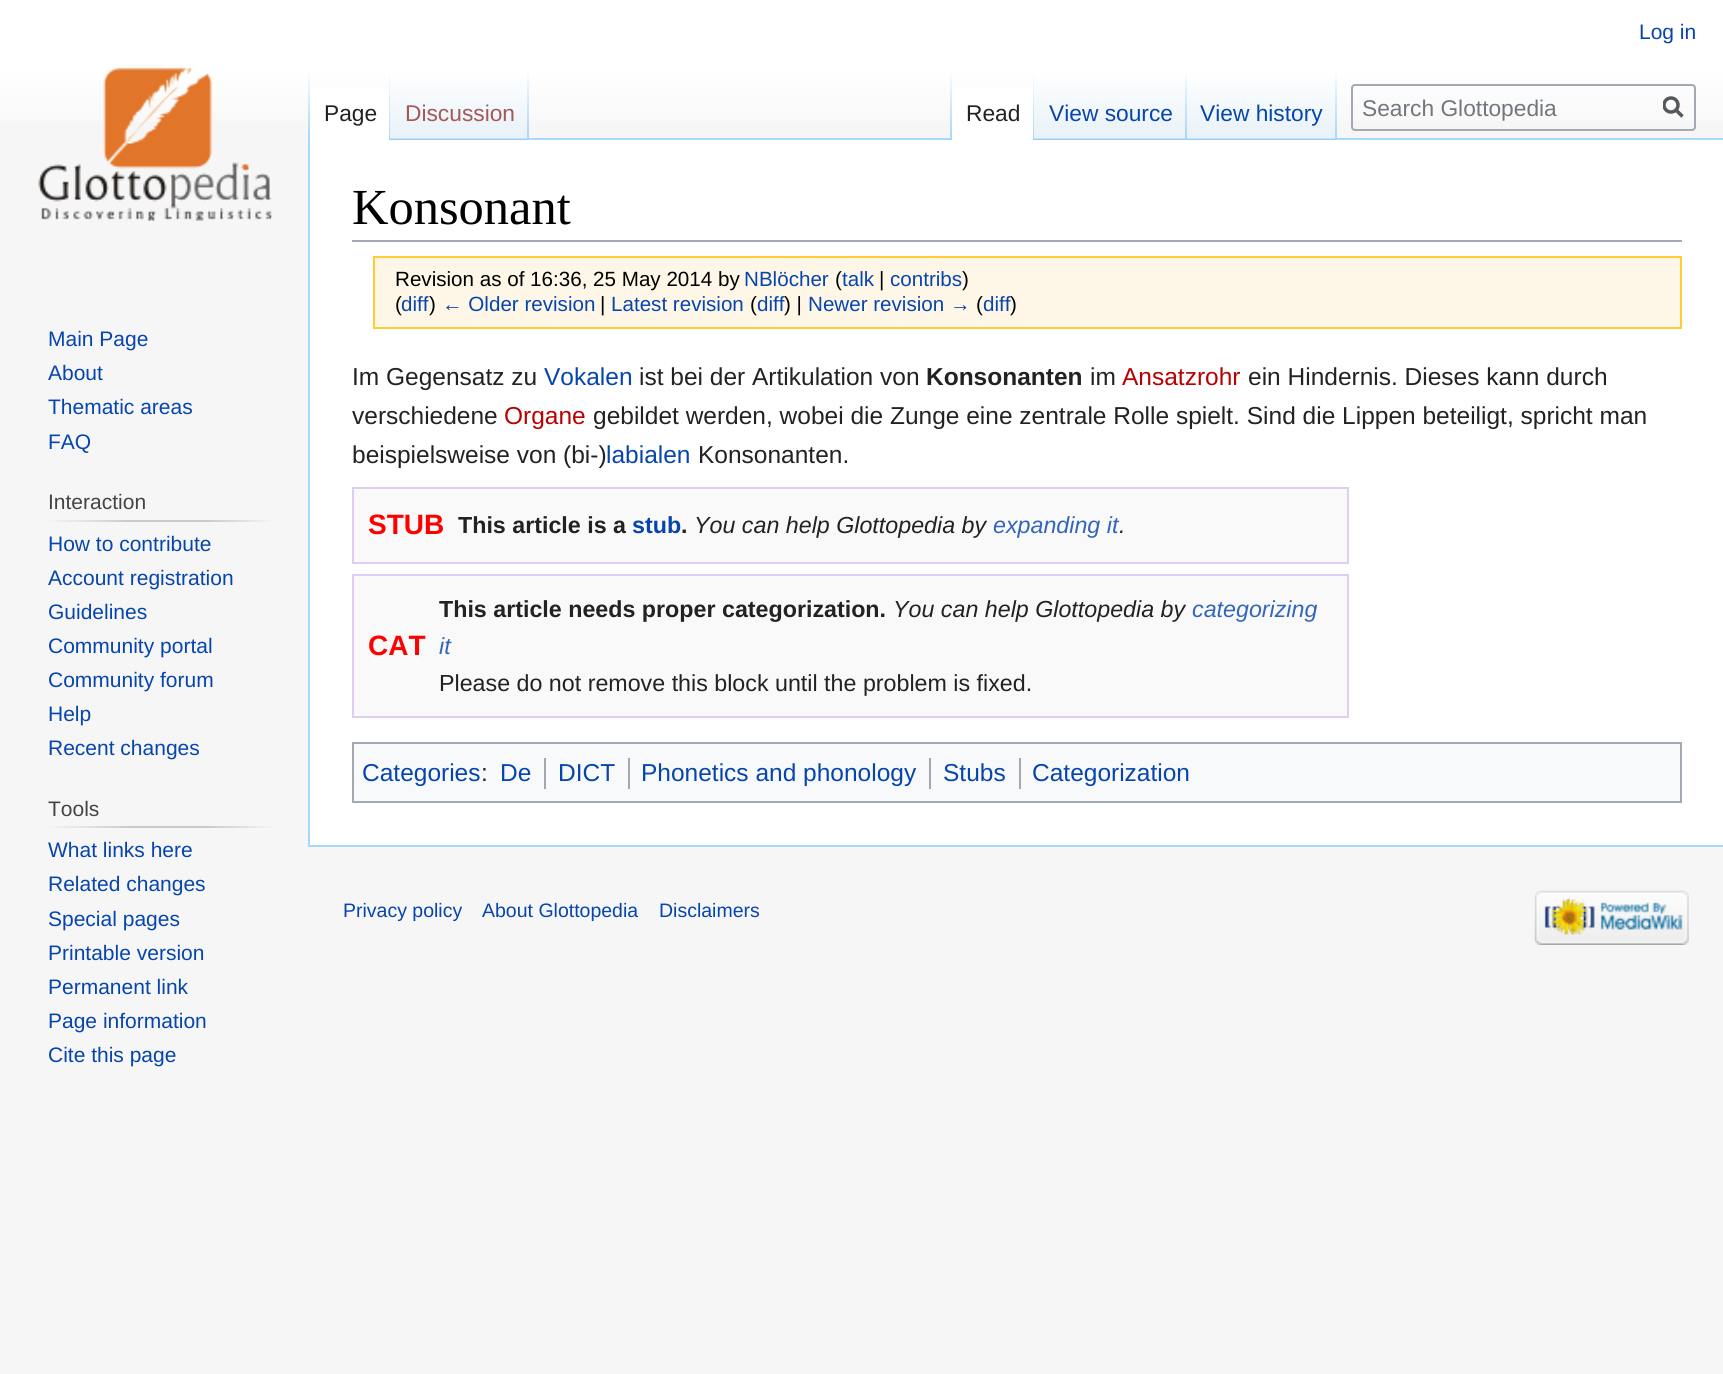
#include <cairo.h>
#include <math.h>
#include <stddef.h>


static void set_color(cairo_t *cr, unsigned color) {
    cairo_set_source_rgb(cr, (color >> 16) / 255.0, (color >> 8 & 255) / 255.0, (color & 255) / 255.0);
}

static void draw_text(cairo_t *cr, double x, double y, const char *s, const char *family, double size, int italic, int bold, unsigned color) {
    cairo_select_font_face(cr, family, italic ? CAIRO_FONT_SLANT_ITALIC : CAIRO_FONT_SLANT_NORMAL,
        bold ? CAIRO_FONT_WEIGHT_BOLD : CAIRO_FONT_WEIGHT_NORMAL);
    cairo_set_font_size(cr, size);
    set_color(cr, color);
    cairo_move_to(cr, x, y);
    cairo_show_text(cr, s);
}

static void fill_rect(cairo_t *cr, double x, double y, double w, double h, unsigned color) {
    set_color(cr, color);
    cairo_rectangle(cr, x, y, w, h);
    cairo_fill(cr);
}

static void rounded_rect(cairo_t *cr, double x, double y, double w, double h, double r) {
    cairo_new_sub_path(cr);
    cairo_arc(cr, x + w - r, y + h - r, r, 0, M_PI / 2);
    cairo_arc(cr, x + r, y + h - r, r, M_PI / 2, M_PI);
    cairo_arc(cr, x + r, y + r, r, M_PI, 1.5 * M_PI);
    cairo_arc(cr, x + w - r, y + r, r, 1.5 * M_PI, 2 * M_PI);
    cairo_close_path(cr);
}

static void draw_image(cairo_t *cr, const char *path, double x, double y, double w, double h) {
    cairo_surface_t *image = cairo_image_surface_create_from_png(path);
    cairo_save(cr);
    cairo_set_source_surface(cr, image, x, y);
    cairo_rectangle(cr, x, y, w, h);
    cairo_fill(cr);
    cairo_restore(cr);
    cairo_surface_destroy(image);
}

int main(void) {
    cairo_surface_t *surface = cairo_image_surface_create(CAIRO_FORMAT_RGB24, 1723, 1374);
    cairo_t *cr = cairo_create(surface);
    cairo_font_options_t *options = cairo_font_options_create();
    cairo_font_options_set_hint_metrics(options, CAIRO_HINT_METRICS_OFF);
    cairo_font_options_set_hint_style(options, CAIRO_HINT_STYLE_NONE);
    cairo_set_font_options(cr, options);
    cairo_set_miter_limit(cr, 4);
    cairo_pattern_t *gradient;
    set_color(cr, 0xF6F6F6);
    cairo_paint(cr);
    gradient = cairo_pattern_create_linear(862, 0, 862, 140);
    cairo_pattern_add_color_stop_rgba(gradient, 0.5, 1, 1, 1, 1);
    cairo_pattern_add_color_stop_rgba(gradient, 1, 0.965, 0.965, 0.965, 1);
    cairo_set_source(cr, gradient);
    cairo_pattern_destroy(gradient);
    cairo_rectangle(cr, 0, 0, 1723, 121);
    cairo_fill(cr);
    draw_text(cr, 1639, 39, "Log in", "Liberation Sans", 21, 0, 0, 0x0645AD);
    fill_rect(cr, 308, 845, 1415, 2, 0xA7D7F9);
    fill_rect(cr, 308, 138, 2, 709, 0xA7D7F9);
    gradient = cairo_pattern_create_linear(309, 70, 309, 140);
    cairo_pattern_add_color_stop_rgba(gradient, 0, 0.655, 0.843, 0.976, 0);
    cairo_pattern_add_color_stop_rgba(gradient, 1, 0.655, 0.843, 0.976, 1);
    cairo_set_source(cr, gradient);
    cairo_pattern_destroy(gradient);
    cairo_rectangle(cr, 308, 70, 2, 70);
    cairo_fill(cr);
    fill_rect(cr, 310, 89, 79, 51, 0xFFFFFF);
    gradient = cairo_pattern_create_linear(389, 70, 389, 140);
    cairo_pattern_add_color_stop_rgba(gradient, 0, 1, 1, 1, 1);
    cairo_pattern_add_color_stop_rgba(gradient, 1, 0.655, 0.843, 0.976, 1);
    cairo_set_source(cr, gradient);
    cairo_pattern_destroy(gradient);
    cairo_rectangle(cr, 389, 70, 1, 70);
    cairo_fill(cr);
    draw_text(cr, 324, 121, "Page", "Liberation Sans", 22.75, 0, 0, 0x222222);
    gradient = cairo_pattern_create_linear(459, 140, 459, 70);
    cairo_pattern_add_color_stop_rgba(gradient, 0, 0.467, 0.757, 0.965, 1);
    cairo_pattern_add_color_stop_rgba(gradient, 0.03, 0.91, 0.949, 0.973, 1);
    cairo_pattern_add_color_stop_rgba(gradient, 1, 1, 1, 1, 1);
    cairo_set_source(cr, gradient);
    cairo_pattern_destroy(gradient);
    cairo_rectangle(cr, 390, 80, 139, 60);
    cairo_fill(cr);
    gradient = cairo_pattern_create_linear(528, 70, 528, 140);
    cairo_pattern_add_color_stop_rgba(gradient, 0, 0.655, 0.843, 0.976, 0);
    cairo_pattern_add_color_stop_rgba(gradient, 1, 0.655, 0.843, 0.976, 1);
    cairo_set_source(cr, gradient);
    cairo_pattern_destroy(gradient);
    cairo_rectangle(cr, 527, 70, 2, 70);
    cairo_fill(cr);
    draw_text(cr, 405, 121, "Discussion", "Liberation Sans", 22.75, 0, 0, 0xA55858);
    fill_rect(cr, 529, 138, 1194, 2, 0xA7D7F9);
    gradient = cairo_pattern_create_linear(951, 70, 951, 140);
    cairo_pattern_add_color_stop_rgba(gradient, 0, 0.655, 0.843, 0.976, 0);
    cairo_pattern_add_color_stop_rgba(gradient, 1, 0.655, 0.843, 0.976, 1);
    cairo_set_source(cr, gradient);
    cairo_pattern_destroy(gradient);
    cairo_rectangle(cr, 950, 70, 2, 70);
    cairo_fill(cr);
    fill_rect(cr, 952, 89, 81, 51, 0xFFFFFF);
    gradient = cairo_pattern_create_linear(1033, 70, 1033, 140);
    cairo_pattern_add_color_stop_rgba(gradient, 0, 1, 1, 1, 1);
    cairo_pattern_add_color_stop_rgba(gradient, 1, 0.655, 0.843, 0.976, 1);
    cairo_set_source(cr, gradient);
    cairo_pattern_destroy(gradient);
    cairo_rectangle(cr, 1033, 70, 1, 70);
    cairo_fill(cr);
    draw_text(cr, 966, 121, "Read", "Liberation Sans", 22.75, 0, 0, 0x222222);
    gradient = cairo_pattern_create_linear(1110, 140, 1110, 70);
    cairo_pattern_add_color_stop_rgba(gradient, 0, 0.467, 0.757, 0.965, 1);
    cairo_pattern_add_color_stop_rgba(gradient, 0.03, 0.91, 0.949, 0.973, 1);
    cairo_pattern_add_color_stop_rgba(gradient, 1, 1, 1, 1, 1);
    cairo_set_source(cr, gradient);
    cairo_pattern_destroy(gradient);
    cairo_rectangle(cr, 1034, 80, 153, 60);
    cairo_fill(cr);
    gradient = cairo_pattern_create_linear(1186, 70, 1186, 140);
    cairo_pattern_add_color_stop_rgba(gradient, 0, 0.655, 0.843, 0.976, 0);
    cairo_pattern_add_color_stop_rgba(gradient, 1, 0.655, 0.843, 0.976, 1);
    cairo_set_source(cr, gradient);
    cairo_pattern_destroy(gradient);
    cairo_rectangle(cr, 1185, 70, 2, 70);
    cairo_fill(cr);
    draw_text(cr, 1049, 121, "View source", "Liberation Sans", 22.75, 0, 0, 0x0645AD);
    gradient = cairo_pattern_create_linear(1262, 140, 1262, 70);
    cairo_pattern_add_color_stop_rgba(gradient, 0, 0.467, 0.757, 0.965, 1);
    cairo_pattern_add_color_stop_rgba(gradient, 0.03, 0.91, 0.949, 0.973, 1);
    cairo_pattern_add_color_stop_rgba(gradient, 1, 1, 1, 1, 1);
    cairo_set_source(cr, gradient);
    cairo_pattern_destroy(gradient);
    cairo_rectangle(cr, 1187, 80, 150, 60);
    cairo_fill(cr);
    gradient = cairo_pattern_create_linear(1336, 70, 1336, 140);
    cairo_pattern_add_color_stop_rgba(gradient, 0, 0.655, 0.843, 0.976, 0);
    cairo_pattern_add_color_stop_rgba(gradient, 1, 0.655, 0.843, 0.976, 1);
    cairo_set_source(cr, gradient);
    cairo_pattern_destroy(gradient);
    cairo_rectangle(cr, 1335, 70, 2, 70);
    cairo_fill(cr);
    draw_text(cr, 1200, 121, "View history", "Liberation Sans", 22.75, 0, 0, 0x0645AD);
    rounded_rect(cr, 1352, 85, 343, 45, 3);
    set_color(cr, 0xA2A9B1);
    cairo_stroke(cr);
    draw_text(cr, 1362, 116, "Search Glottopedia", "Liberation Sans", 22.75, 0, 0, 0x72777D);
    cairo_new_path(cr);
    cairo_move_to(cr, 1682.5, 116.5);
    cairo_line_to(cr, 1675.5, 109.5);
    set_color(cr, 0x54595D);
    cairo_set_line_width(cr, 3.5);
    cairo_stroke(cr);
    cairo_save(cr);
    cairo_rectangle(cr, 1663, 96, 21, 23);
    cairo_clip(cr);
    cairo_arc(cr, 1671, 105, 7, 0, 2 * M_PI);
    cairo_stroke(cr);
    cairo_restore(cr);
    draw_image(cr, "assets/img1.png", 38, 67, 234, 154);
    draw_text(cr, 48, 346, "Main Page", "Liberation Sans", 21, 0, 0, 0x0645AD);
    draw_text(cr, 48, 380, "About", "Liberation Sans", 21, 0, 0, 0x0645AD);
    draw_text(cr, 48, 414, "Thematic areas", "Liberation Sans", 21, 0, 0, 0x0645AD);
    draw_text(cr, 48, 449, "FAQ", "Liberation Sans", 21, 0, 0, 0x0645AD);
    draw_text(cr, 48, 509, "Interaction", "Liberation Sans", 21, 0, 0, 0x444444);
    gradient = cairo_pattern_create_linear(47, 521, 277, 521);
    cairo_pattern_add_color_stop_rgba(gradient, 0, 0.965, 0.965, 0.965, 1);
    cairo_pattern_add_color_stop_rgba(gradient, 0.35, 0.784, 0.8, 0.82, 1);
    cairo_pattern_add_color_stop_rgba(gradient, 0.7, 0.784, 0.8, 0.82, 1);
    cairo_pattern_add_color_stop_rgba(gradient, 1, 0.965, 0.965, 0.965, 1);
    cairo_set_source(cr, gradient);
    cairo_pattern_destroy(gradient);
    cairo_rectangle(cr, 47, 520, 230, 2);
    cairo_fill(cr);
    draw_text(cr, 48, 551, "How to contribute", "Liberation Sans", 21, 0, 0, 0x0645AD);
    draw_text(cr, 48, 585, "Account registration", "Liberation Sans", 21, 0, 0, 0x0645AD);
    draw_text(cr, 48, 619, "Guidelines", "Liberation Sans", 21, 0, 0, 0x0645AD);
    draw_text(cr, 48, 653, "Community portal", "Liberation Sans", 21, 0, 0, 0x0645AD);
    draw_text(cr, 48, 687, "Community forum", "Liberation Sans", 21, 0, 0, 0x0645AD);
    draw_text(cr, 48, 721, "Help", "Liberation Sans", 21, 0, 0, 0x0645AD);
    draw_text(cr, 48, 755, "Recent changes", "Liberation Sans", 21, 0, 0, 0x0645AD);
    draw_text(cr, 48, 816, "Tools", "Liberation Sans", 21, 0, 0, 0x444444);
    gradient = cairo_pattern_create_linear(47, 827, 277, 827);
    cairo_pattern_add_color_stop_rgba(gradient, 0, 0.965, 0.965, 0.965, 1);
    cairo_pattern_add_color_stop_rgba(gradient, 0.35, 0.784, 0.8, 0.82, 1);
    cairo_pattern_add_color_stop_rgba(gradient, 0.7, 0.784, 0.8, 0.82, 1);
    cairo_pattern_add_color_stop_rgba(gradient, 1, 0.965, 0.965, 0.965, 1);
    cairo_set_source(cr, gradient);
    cairo_pattern_destroy(gradient);
    cairo_rectangle(cr, 47, 826, 230, 2);
    cairo_fill(cr);
    draw_text(cr, 48, 857, "What links here", "Liberation Sans", 21, 0, 0, 0x0645AD);
    draw_text(cr, 48, 891, "Related changes", "Liberation Sans", 21, 0, 0, 0x0645AD);
    draw_text(cr, 48, 926, "Special pages", "Liberation Sans", 21, 0, 0, 0x0645AD);
    draw_text(cr, 48, 960, "Printable version", "Liberation Sans", 21, 0, 0, 0x0645AD);
    draw_text(cr, 48, 994, "Permanent link", "Liberation Sans", 21, 0, 0, 0x0645AD);
    draw_text(cr, 48, 1028, "Page information", "Liberation Sans", 21, 0, 0, 0x0645AD);
    draw_text(cr, 48, 1062, "Cite this page", "Liberation Sans", 21, 0, 0, 0x0645AD);
    fill_rect(cr, 310, 140, 1413, 705, 0xFFFFFF);
    fill_rect(cr, 352, 240, 1330, 2, 0xA2A9B1);
    draw_text(cr, 352, 224, "Konsonant", "Liberation Serif", 50.5, 0, 0, 0x000000);
    set_color(cr, 0xFEF6E7);
    cairo_rectangle(cr, 374, 257, 1307, 71);
    cairo_fill_preserve(cr);
    set_color(cr, 0xFFCC33);
    cairo_set_line_width(cr, 2);
    cairo_stroke(cr);
    draw_text(cr, 395, 286, "Revision as of 16:36, 25 May 2014 by", "Liberation Sans", 20.6, 0, 0, 0x000000);
    draw_text(cr, 744, 286, "NBlöcher", "Liberation Sans", 20.6, 0, 0, 0x0645AD);
    draw_text(cr, 835, 286, "(", "Liberation Sans", 20.6, 0, 0, 0x000000);
    draw_text(cr, 842, 286, "talk", "Liberation Sans", 20.6, 0, 0, 0x0645AD);
    draw_text(cr, 879, 286, "|", "Liberation Sans", 20.6, 0, 0, 0x000000);
    draw_text(cr, 890, 286, "contribs", "Liberation Sans", 20.6, 0, 0, 0x0645AD);
    draw_text(cr, 962, 286, ")", "Liberation Sans", 20.6, 0, 0, 0x000000);
    draw_text(cr, 395, 311, "(", "Liberation Sans", 20.6, 0, 0, 0x000000);
    draw_text(cr, 401, 311, "diff", "Liberation Sans", 20.6, 0, 0, 0x0645AD);
    draw_text(cr, 429, 311, ")", "Liberation Sans", 20.6, 0, 0, 0x000000);
    draw_text(cr, 442, 311, "← Older revision", "Liberation Sans", 20.6, 0, 0, 0x0645AD);
    draw_text(cr, 600, 311, "|", "Liberation Sans", 20.6, 0, 0, 0x000000);
    draw_text(cr, 611, 311, "Latest revision", "Liberation Sans", 20.6, 0, 0, 0x0645AD);
    draw_text(cr, 750, 311, "(", "Liberation Sans", 20.6, 0, 0, 0x000000);
    draw_text(cr, 757, 311, "diff", "Liberation Sans", 20.6, 0, 0, 0x0645AD);
    draw_text(cr, 784, 311, ") |", "Liberation Sans", 20.6, 0, 0, 0x000000);
    draw_text(cr, 808, 311, "Newer revision →", "Liberation Sans", 20.6, 0, 0, 0x0645AD);
    draw_text(cr, 976, 311, "(", "Liberation Sans", 20.6, 0, 0, 0x000000);
    draw_text(cr, 983, 311, "diff", "Liberation Sans", 20.6, 0, 0, 0x0645AD);
    draw_text(cr, 1010, 311, ")", "Liberation Sans", 20.6, 0, 0, 0x000000);
    draw_text(cr, 352, 385, "Im Gegensatz zu", "Liberation Sans", 24.5, 0, 0, 0x222222);
    draw_text(cr, 544, 385, "Vokalen", "Liberation Sans", 24.5, 0, 0, 0x0645AD);
    draw_text(cr, 639, 385, "ist bei der Artikulation von", "Liberation Sans", 24.5, 0, 0, 0x222222);
    draw_text(cr, 926, 385, "Konsonanten", "Liberation Sans", 24.5, 0, 1, 0x222222);
    draw_text(cr, 1090, 385, "im", "Liberation Sans", 24.5, 0, 0, 0x222222);
    draw_text(cr, 1122, 385, "Ansatzrohr", "Liberation Sans", 24.5, 0, 0, 0xBA0000);
    draw_text(cr, 1248, 385, "ein Hindernis. Dieses kann durch", "Liberation Sans", 24.5, 0, 0, 0x222222);
    draw_text(cr, 352, 424, "verschiedene", "Liberation Sans", 24.5, 0, 0, 0x222222);
    draw_text(cr, 504, 424, "Organe", "Liberation Sans", 24.5, 0, 0, 0xBA0000);
    draw_text(cr, 593, 424, "gebildet werden, wobei die Zunge eine zentrale Rolle spielt. Sind die Lippen beteiligt, spricht man", "Liberation Sans", 24.5, 0, 0, 0x222222);
    draw_text(cr, 352, 463, "beispielsweise von (bi-)", "Liberation Sans", 24.5, 0, 0, 0x222222);
    draw_text(cr, 606, 463, "labialen", "Liberation Sans", 24.5, 0, 0, 0x0645AD);
    draw_text(cr, 698, 463, "Konsonanten.", "Liberation Sans", 24.5, 0, 0, 0x222222);
    set_color(cr, 0xF9F9F9);
    cairo_rectangle(cr, 353, 488, 995, 75);
    cairo_fill_preserve(cr);
    set_color(cr, 0xDDCEF2);
    cairo_stroke(cr);
    draw_text(cr, 368, 534, "STUB", "Liberation Sans", 28, 0, 1, 0xFF0000);
    draw_text(cr, 458, 533, "This article is a", "Liberation Sans", 23.25, 0, 1, 0x222222);
    draw_text(cr, 632, 533, "stub", "Liberation Sans", 23.25, 0, 1, 0x0645AD);
    draw_text(cr, 681, 533, ".", "Liberation Sans", 23.25, 0, 1, 0x222222);
    draw_text(cr, 694, 533, "You can help Glottopedia by", "Liberation Sans", 23.25, 1, 0, 0x222222);
    draw_text(cr, 993, 533, "expanding it", "Liberation Sans", 23.25, 1, 0, 0x3366BB);
    draw_text(cr, 1119, 533, ".", "Liberation Sans", 23.25, 1, 0, 0x222222);
    set_color(cr, 0xF9F9F9);
    cairo_rectangle(cr, 353, 575, 995, 142);
    cairo_fill_preserve(cr);
    set_color(cr, 0xDDCEF2);
    cairo_stroke(cr);
    draw_text(cr, 368, 655, "CAT", "Liberation Sans", 28, 0, 1, 0xFF0000);
    draw_text(cr, 439, 617, "This article needs proper categorization.", "Liberation Sans", 23.25, 0, 1, 0x222222);
    draw_text(cr, 893, 617, "You can help Glottopedia by", "Liberation Sans", 23.25, 1, 0, 0x222222);
    draw_text(cr, 1192, 617, "categorizing", "Liberation Sans", 23.25, 1, 0, 0x3366BB);
    draw_text(cr, 439, 654, "it", "Liberation Sans", 23.25, 1, 0, 0x3366BB);
    draw_text(cr, 439, 691, "Please do not remove this block until the problem is fixed.", "Liberation Sans", 23.25, 0, 0, 0x222222);
    set_color(cr, 0xF8F9FA);
    cairo_rectangle(cr, 353, 743, 1328, 59);
    cairo_fill_preserve(cr);
    set_color(cr, 0xA2A9B1);
    cairo_stroke(cr);
    draw_text(cr, 362, 781, "Categories", "Liberation Sans", 24.5, 0, 0, 0x0645AD);
    draw_text(cr, 481, 781, ":", "Liberation Sans", 24.5, 0, 0, 0x222222);
    draw_text(cr, 500, 781, "De", "Liberation Sans", 24.5, 0, 0, 0x0645AD);
    fill_rect(cr, 544, 758, 2, 31, 0xA2A9B1);
    draw_text(cr, 558, 781, "DICT", "Liberation Sans", 24.5, 0, 0, 0x0645AD);
    fill_rect(cr, 628, 758, 2, 31, 0xA2A9B1);
    draw_text(cr, 641, 781, "Phonetics and phonology", "Liberation Sans", 24.5, 0, 0, 0x0645AD);
    fill_rect(cr, 929, 758, 2, 31, 0xA2A9B1);
    draw_text(cr, 943, 781, "Stubs", "Liberation Sans", 24.5, 0, 0, 0x0645AD);
    fill_rect(cr, 1019, 758, 2, 31, 0xA2A9B1);
    draw_text(cr, 1032, 781, "Categorization", "Liberation Sans", 24.5, 0, 0, 0x0645AD);
    draw_text(cr, 343, 917, "Privacy policy", "Liberation Sans", 19.5, 0, 0, 0x0645AD);
    draw_text(cr, 482, 917, "About Glottopedia", "Liberation Sans", 19.5, 0, 0, 0x0645AD);
    draw_text(cr, 659, 917, "Disclaimers", "Liberation Sans", 19.5, 0, 0, 0x0645AD);
    draw_image(cr, "assets/img2.png", 1534, 890, 155, 55);
    cairo_surface_write_to_png(surface, "output.png");
    cairo_font_options_destroy(options);
    cairo_destroy(cr);
    cairo_surface_destroy(surface);
    return 0;
}
